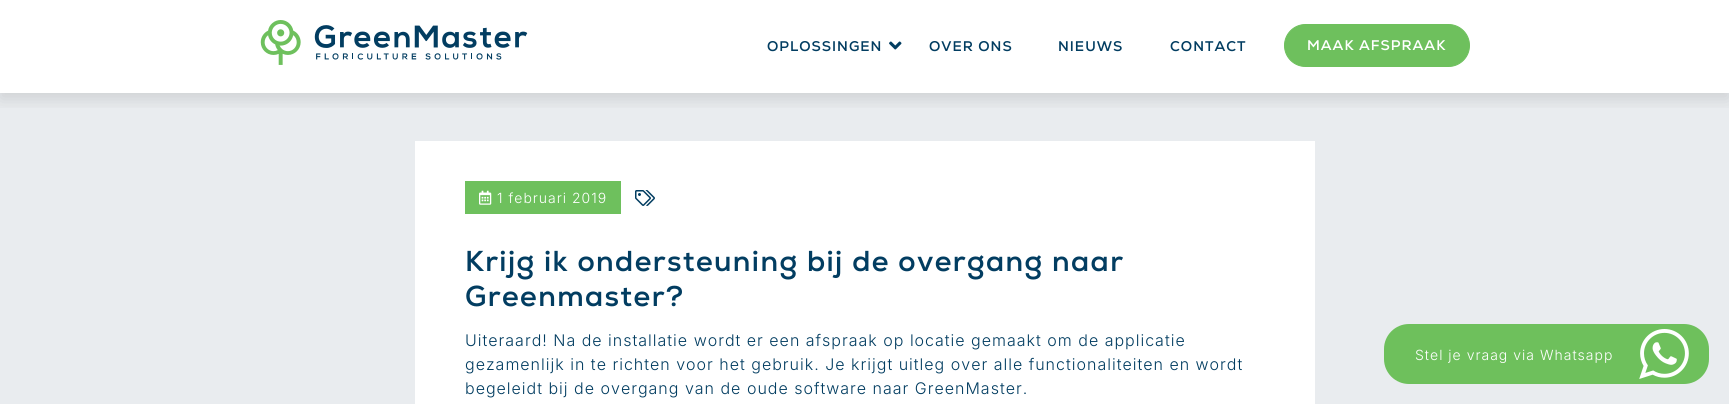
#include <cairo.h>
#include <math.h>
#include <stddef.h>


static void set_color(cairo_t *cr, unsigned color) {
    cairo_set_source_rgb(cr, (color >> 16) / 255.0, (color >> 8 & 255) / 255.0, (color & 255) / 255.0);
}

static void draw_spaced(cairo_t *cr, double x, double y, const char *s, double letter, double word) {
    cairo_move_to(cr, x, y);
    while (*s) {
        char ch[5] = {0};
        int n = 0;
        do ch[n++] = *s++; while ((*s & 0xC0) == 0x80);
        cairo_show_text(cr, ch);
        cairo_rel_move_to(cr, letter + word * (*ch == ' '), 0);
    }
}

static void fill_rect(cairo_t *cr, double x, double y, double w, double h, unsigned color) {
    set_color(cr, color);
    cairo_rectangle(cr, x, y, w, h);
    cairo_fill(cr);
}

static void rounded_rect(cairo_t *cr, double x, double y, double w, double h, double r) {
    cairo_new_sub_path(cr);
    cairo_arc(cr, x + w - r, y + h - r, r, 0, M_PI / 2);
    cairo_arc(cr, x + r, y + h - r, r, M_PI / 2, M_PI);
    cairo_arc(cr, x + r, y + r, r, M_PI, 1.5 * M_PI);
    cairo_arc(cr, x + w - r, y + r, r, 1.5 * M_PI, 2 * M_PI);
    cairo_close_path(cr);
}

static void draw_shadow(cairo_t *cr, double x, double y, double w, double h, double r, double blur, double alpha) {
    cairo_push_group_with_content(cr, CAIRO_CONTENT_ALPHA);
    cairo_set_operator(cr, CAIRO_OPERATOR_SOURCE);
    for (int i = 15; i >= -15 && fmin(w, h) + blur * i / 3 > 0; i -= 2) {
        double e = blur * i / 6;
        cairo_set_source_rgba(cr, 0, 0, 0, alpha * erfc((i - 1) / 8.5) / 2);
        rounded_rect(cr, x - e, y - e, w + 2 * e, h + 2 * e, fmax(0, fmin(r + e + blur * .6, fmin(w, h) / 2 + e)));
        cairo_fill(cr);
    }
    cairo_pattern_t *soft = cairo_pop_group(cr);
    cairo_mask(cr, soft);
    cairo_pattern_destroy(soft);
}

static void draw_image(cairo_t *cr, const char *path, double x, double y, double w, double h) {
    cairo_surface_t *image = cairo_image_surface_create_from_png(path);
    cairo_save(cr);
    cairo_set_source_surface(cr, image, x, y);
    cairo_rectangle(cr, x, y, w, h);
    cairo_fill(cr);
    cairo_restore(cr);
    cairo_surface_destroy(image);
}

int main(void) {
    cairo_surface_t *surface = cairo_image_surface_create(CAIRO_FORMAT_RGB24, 1729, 404);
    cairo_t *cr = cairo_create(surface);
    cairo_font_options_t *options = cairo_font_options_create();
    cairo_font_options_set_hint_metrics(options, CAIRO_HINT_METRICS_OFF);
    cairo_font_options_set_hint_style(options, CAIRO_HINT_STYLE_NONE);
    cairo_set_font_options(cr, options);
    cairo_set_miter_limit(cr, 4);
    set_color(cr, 0xFFFFFF);
    cairo_paint(cr);
    fill_rect(cr, 0, 93, 1729, 311, 0xE9ECEF);
    cairo_save(cr);
    cairo_rectangle(cr, 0, 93, 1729, 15);
    cairo_clip(cr);
    set_color(cr, 0x000000);
    draw_shadow(cr, 0, 6, 1729, 93, 0, 9, 0.12);
    cairo_restore(cr);
    draw_image(cr, "assets/img1.png", 260, 20, 268, 45);
    cairo_select_font_face(cr, "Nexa", CAIRO_FONT_SLANT_NORMAL, CAIRO_FONT_WEIGHT_BOLD);
    cairo_set_font_size(cr, 14);
    set_color(cr, 0x023D61);
    draw_spaced(cr, 767, 51, "OPLOSSINGEN", 1, 0);
    draw_image(cr, "assets/img2.png", 889, 41, 13, 9);
    draw_spaced(cr, 929, 51, "OVER ONS", 1, 0);
    draw_spaced(cr, 1058, 51, "NIEUWS", 1, 0);
    draw_spaced(cr, 1170, 51, "CONTACT", 1, 0);
    set_color(cr, 0x6EC05D);
    rounded_rect(cr, 1284.5, 24.5, 185, 42, 21);
    cairo_fill_preserve(cr);
    cairo_set_line_width(cr, 1);
    cairo_stroke(cr);
    set_color(cr, 0xFFFFFF);
    draw_spaced(cr, 1307, 50, "MAAK AFSPRAAK", 1, 0);
    fill_rect(cr, 415, 141, 900, 263, 0xFFFFFF);
    fill_rect(cr, 465, 181, 156, 33, 0x6EC05D);
    draw_image(cr, "assets/img3.png", 479, 190, 13, 15);
    cairo_select_font_face(cr, "Inter Light", CAIRO_FONT_SLANT_NORMAL, CAIRO_FONT_WEIGHT_NORMAL);
    set_color(cr, 0xFFFFFF);
    draw_spaced(cr, 497, 203, "1 februari 2019", 1, 0);
    draw_image(cr, "assets/img4.png", 635, 190, 20, 16);
    cairo_select_font_face(cr, "Nexa", CAIRO_FONT_SLANT_NORMAL, CAIRO_FONT_WEIGHT_BOLD);
    cairo_set_font_size(cr, 28.8);
    set_color(cr, 0x023D61);
    draw_spaced(cr, 465, 271, "Krijg ik ondersteuning bij de overgang naar", 1.4, 0);
    draw_spaced(cr, 465, 306, "Greenmaster?", 1.4, 0);
    cairo_select_font_face(cr, "Inter Light", CAIRO_FONT_SLANT_NORMAL, CAIRO_FONT_WEIGHT_NORMAL);
    cairo_set_font_size(cr, 16);
    draw_spaced(cr, 465, 346, "Uiteraard! Na de installatie wordt er een afspraak op locatie gemaakt om de applicatie", 1, 0);
    draw_spaced(cr, 465, 370, "gezamenlijk in te richten voor het gebruik. Je krijgt uitleg over alle functionaliteiten en wordt", 1, 0);
    draw_spaced(cr, 465, 394, "begeleidt bij de overgang van de oude software naar GreenMaster.", 1, 0);
    set_color(cr, 0x6EC05C);
    rounded_rect(cr, 1384, 324, 325, 60, 25);
    cairo_fill(cr);
    cairo_set_font_size(cr, 14);
    set_color(cr, 0xFFFFFF);
    draw_spaced(cr, 1415, 360, "Stel je vraag via Whatsapp", 1, 0);
    draw_image(cr, "assets/img5.png", 1639, 329, 50, 50);
    cairo_surface_write_to_png(surface, "output.png");
    cairo_font_options_destroy(options);
    cairo_destroy(cr);
    cairo_surface_destroy(surface);
    return 0;
}
